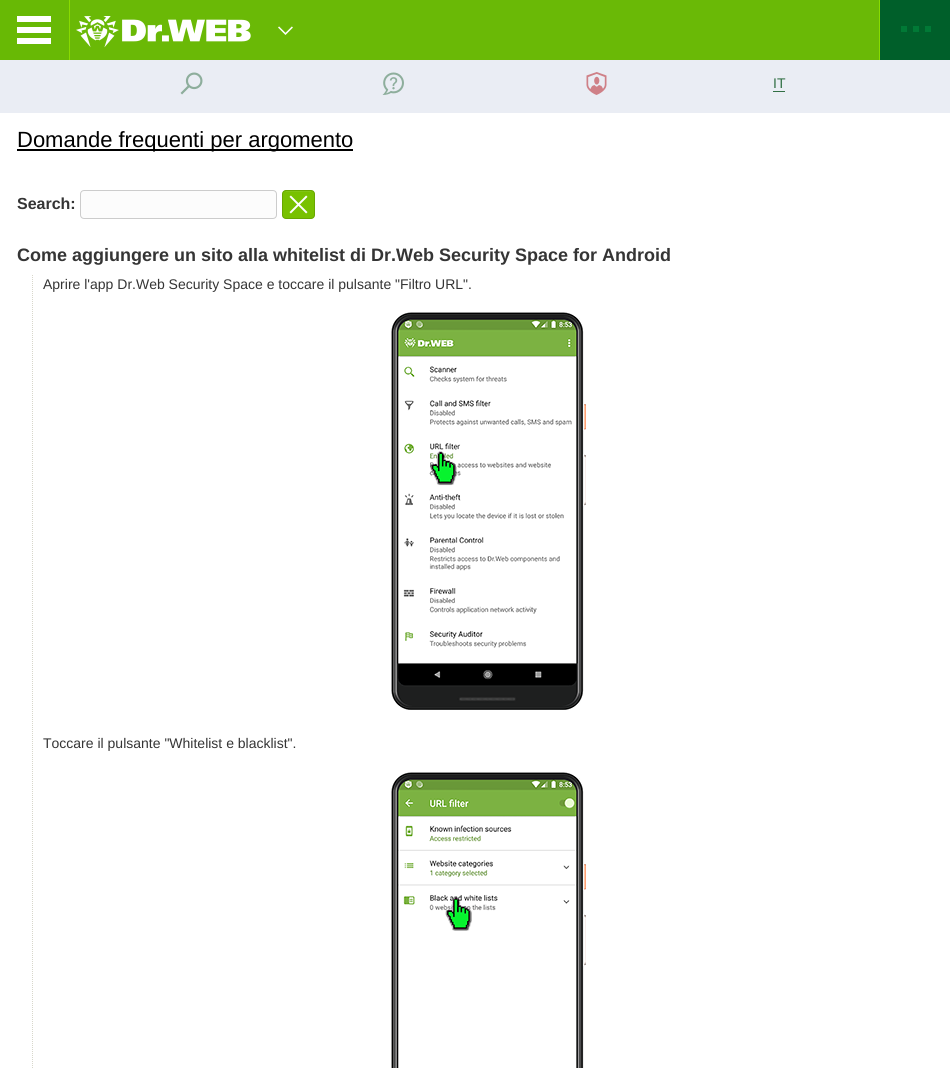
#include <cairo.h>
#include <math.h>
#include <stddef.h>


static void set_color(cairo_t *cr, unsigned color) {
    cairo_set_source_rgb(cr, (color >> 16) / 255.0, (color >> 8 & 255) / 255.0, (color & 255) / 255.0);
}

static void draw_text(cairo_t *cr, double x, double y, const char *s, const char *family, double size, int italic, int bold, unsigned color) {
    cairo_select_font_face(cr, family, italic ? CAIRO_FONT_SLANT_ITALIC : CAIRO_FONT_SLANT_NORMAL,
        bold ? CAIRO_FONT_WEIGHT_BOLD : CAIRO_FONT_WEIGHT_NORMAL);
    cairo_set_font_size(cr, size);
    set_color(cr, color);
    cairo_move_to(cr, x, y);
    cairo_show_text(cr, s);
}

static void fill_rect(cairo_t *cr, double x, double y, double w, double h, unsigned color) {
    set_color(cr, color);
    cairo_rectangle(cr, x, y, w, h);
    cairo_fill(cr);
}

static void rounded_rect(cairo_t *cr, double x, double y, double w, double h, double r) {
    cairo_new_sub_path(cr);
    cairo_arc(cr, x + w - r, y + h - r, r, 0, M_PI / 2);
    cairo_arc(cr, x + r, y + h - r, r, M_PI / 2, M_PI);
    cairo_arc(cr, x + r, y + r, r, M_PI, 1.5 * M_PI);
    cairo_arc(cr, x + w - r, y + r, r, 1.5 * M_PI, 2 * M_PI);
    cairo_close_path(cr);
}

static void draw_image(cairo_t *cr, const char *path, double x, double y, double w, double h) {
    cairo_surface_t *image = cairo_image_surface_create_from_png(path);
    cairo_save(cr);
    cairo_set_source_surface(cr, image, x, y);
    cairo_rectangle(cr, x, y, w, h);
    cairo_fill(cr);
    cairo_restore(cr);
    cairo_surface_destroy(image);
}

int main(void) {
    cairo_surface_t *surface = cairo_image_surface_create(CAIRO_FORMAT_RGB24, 950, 1068);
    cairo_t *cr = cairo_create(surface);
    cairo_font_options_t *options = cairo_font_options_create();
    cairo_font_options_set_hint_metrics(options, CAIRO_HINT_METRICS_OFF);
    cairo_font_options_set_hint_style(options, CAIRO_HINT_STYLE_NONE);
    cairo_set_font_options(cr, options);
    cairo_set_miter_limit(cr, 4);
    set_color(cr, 0xFFFFFF);
    cairo_paint(cr);
    fill_rect(cr, 70, 0, 809, 60, 0x6AB906);
    fill_rect(cr, 0, 0, 69, 60, 0x68B905);
    fill_rect(cr, 69, 0, 1, 60, 0x89DB01);
    fill_rect(cr, 17, 16, 34, 6, 0xFFFFFF);
    fill_rect(cr, 17, 27, 34, 6, 0xFFFFFF);
    fill_rect(cr, 17, 38, 34, 6, 0xFFFFFF);
    draw_image(cr, "assets/img1.png", 76, 16, 175, 32);
    draw_image(cr, "assets/img2.png", 278, 26, 15, 9);
    fill_rect(cr, 880, 0, 70, 60, 0x005F2A);
    fill_rect(cr, 879, 0, 1, 60, 0x89DB01);
    fill_rect(cr, 901, 26, 6, 6, 0x017936);
    fill_rect(cr, 913, 26, 6, 6, 0x017936);
    fill_rect(cr, 925, 26, 6, 6, 0x017936);
    fill_rect(cr, 0, 60, 950, 53, 0xEAEDF4);
    draw_image(cr, "assets/img3.png", 180, 72, 23, 23);
    draw_image(cr, "assets/img4.png", 382, 72, 22, 23);
    draw_image(cr, "assets/img5.png", 586, 72, 21, 23);
    fill_rect(cr, 773, 91, 12, 1, 0x316F44);
    draw_text(cr, 773, 88, "IT", "Liberation Sans", 14, 0, 0, 0x316F44);
    fill_rect(cr, 17, 149, 336, 2, 0x000000);
    draw_text(cr, 17, 147, "Domande frequenti per argomento", "Liberation Sans", 22, 0, 0, 0x000000);
    draw_text(cr, 17, 209, "Search:", "Liberation Sans", 16, 0, 1, 0x353535);
    set_color(cr, 0xFCFCFC);
    rounded_rect(cr, 80.5, 190.5, 196, 28, 3.5);
    cairo_fill_preserve(cr);
    set_color(cr, 0xCCCCCC);
    cairo_set_line_width(cr, 1);
    cairo_stroke(cr);
    set_color(cr, 0x78C100);
    rounded_rect(cr, 282, 190, 33, 29, 4);
    cairo_fill(cr);
    rounded_rect(cr, 282.5, 190.5, 32, 28, 3.5);
    cairo_set_source_rgba(cr, 0, 0, 0, 0.14);
    cairo_stroke(cr);
    fill_rect(cr, 286, 191, 25, 1, 0x81C512);
    draw_image(cr, "assets/img6.png", 289, 195, 19, 19);
    draw_text(cr, 17, 261, "Come aggiungere un sito alla whitelist di Dr.Web Security Space for Android", "Liberation Sans", 18, 0, 1, 0x353535);
    cairo_new_path(cr);
    cairo_move_to(cr, 32.5, 275);
    cairo_line_to(cr, 32.5, 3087);
    set_color(cr, 0xD8D7CB);
    cairo_set_dash(cr, (double[]){1, 1}, 2, 0);
    cairo_stroke(cr);
    draw_text(cr, 43, 289, "Aprire l'app Dr.Web Security Space e toccare il pulsante \"Filtro URL\".", "Liberation Sans", 14, 0, 0, 0x353535);
    draw_image(cr, "assets/img7.png", 391, 312, 195, 398);
    draw_text(cr, 43, 748, "Toccare il pulsante \"Whitelist e blacklist\".", "Liberation Sans", 14, 0, 0, 0x353535);
    draw_image(cr, "assets/img8.png", 391, 772, 195, 296);
    cairo_surface_write_to_png(surface, "output.png");
    cairo_font_options_destroy(options);
    cairo_destroy(cr);
    cairo_surface_destroy(surface);
    return 0;
}
